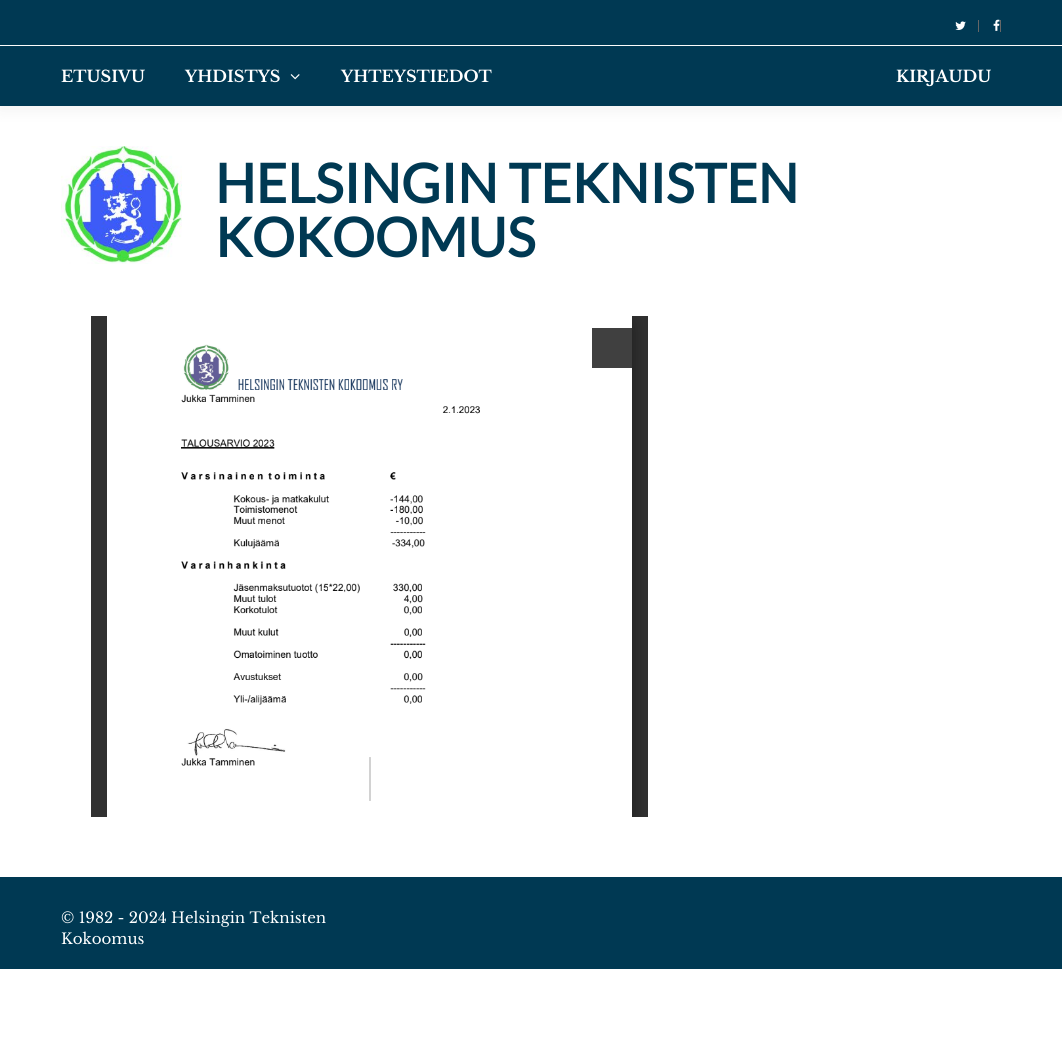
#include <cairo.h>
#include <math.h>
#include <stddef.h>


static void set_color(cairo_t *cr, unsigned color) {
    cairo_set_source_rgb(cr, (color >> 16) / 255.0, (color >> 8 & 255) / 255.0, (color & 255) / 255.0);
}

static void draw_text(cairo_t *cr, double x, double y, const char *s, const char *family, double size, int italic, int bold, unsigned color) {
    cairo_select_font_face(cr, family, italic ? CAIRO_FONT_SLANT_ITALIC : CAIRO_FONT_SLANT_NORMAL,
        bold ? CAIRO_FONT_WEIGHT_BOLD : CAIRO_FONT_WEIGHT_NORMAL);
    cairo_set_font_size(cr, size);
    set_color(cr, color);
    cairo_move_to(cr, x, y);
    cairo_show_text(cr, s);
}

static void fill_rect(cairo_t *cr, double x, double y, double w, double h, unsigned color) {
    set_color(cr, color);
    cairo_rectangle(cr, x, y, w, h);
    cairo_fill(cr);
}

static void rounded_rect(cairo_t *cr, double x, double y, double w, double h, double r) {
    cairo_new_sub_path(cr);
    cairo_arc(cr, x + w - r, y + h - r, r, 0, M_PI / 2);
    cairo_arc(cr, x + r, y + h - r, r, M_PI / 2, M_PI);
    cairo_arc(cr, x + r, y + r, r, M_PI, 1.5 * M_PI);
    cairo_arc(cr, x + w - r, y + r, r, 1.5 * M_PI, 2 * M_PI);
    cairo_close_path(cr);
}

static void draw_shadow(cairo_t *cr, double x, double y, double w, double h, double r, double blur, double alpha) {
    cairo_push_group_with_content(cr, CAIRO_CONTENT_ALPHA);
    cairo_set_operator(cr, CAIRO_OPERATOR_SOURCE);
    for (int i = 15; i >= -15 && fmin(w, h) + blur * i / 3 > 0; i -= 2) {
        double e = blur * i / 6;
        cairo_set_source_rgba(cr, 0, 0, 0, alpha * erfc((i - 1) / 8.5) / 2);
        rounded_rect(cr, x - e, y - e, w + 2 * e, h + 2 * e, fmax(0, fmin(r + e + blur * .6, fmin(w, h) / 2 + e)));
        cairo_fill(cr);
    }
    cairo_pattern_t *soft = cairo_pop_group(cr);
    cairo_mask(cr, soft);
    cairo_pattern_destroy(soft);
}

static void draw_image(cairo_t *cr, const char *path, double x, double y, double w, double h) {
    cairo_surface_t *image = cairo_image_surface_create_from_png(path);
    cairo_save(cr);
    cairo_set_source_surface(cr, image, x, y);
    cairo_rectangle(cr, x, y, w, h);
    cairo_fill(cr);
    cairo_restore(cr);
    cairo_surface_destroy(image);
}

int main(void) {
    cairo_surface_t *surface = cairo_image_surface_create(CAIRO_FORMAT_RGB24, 1062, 1062);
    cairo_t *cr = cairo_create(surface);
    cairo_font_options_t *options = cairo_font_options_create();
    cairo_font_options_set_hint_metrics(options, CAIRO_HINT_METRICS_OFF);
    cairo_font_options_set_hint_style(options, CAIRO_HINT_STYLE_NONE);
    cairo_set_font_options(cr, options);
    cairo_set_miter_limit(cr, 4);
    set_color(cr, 0xFFFFFF);
    cairo_paint(cr);
    fill_rect(cr, 0, 0, 1062, 45, 0x003953);
    fill_rect(cr, 978, 20, 1, 12, 0x666666);
    draw_image(cr, "assets/img1.png", 955, 21, 11, 9);
    fill_rect(cr, 1000, 20, 1, 12, 0x666666);
    draw_image(cr, "assets/img2.png", 993, 19, 7, 12);
    set_color(cr, 0x000000);
    draw_shadow(cr, 0, 51, 1062, 60, 0, 7.5, 0.05);
    fill_rect(cr, 0, 46, 1062, 60, 0x003953);
    draw_text(cr, 61, 82, "ETUSIVU", "Libre Baskerville", 16, 0, 1, 0xFFFFFF);
    draw_text(cr, 185, 82, "YHDISTYS", "Libre Baskerville", 16, 0, 1, 0xFFFFFF);
    draw_image(cr, "assets/img3.png", 290, 74, 10, 6);
    draw_text(cr, 341, 82, "YHTEYSTIEDOT", "Libre Baskerville", 16, 0, 1, 0xFFFFFF);
    draw_text(cr, 896, 82, "KIRJAUDU", "Libre Baskerville", 16, 0, 1, 0xFFFFFF);
    draw_image(cr, "assets/img4.png", 61, 146, 121, 118);
    draw_text(cr, 215, 203, "HELSINGIN TEKNISTEN", "Lato", 54, 0, 1, 0x003953);
    draw_text(cr, 215, 257, "KOKOOMUS", "Lato", 54, 0, 1, 0x003953);
    draw_image(cr, "assets/img5.png", 91, 316, 557, 501);
    fill_rect(cr, 0, 877, 1062, 92, 0x003953);
    draw_text(cr, 61, 923, "© 1982 - 2024 Helsingin Teknisten", "Libre Baskerville", 15, 0, 0, 0xFFFFFF);
    draw_text(cr, 61, 944, "Kokoomus", "Libre Baskerville", 15, 0, 0, 0xFFFFFF);
    cairo_surface_write_to_png(surface, "output.png");
    cairo_font_options_destroy(options);
    cairo_destroy(cr);
    cairo_surface_destroy(surface);
    return 0;
}
